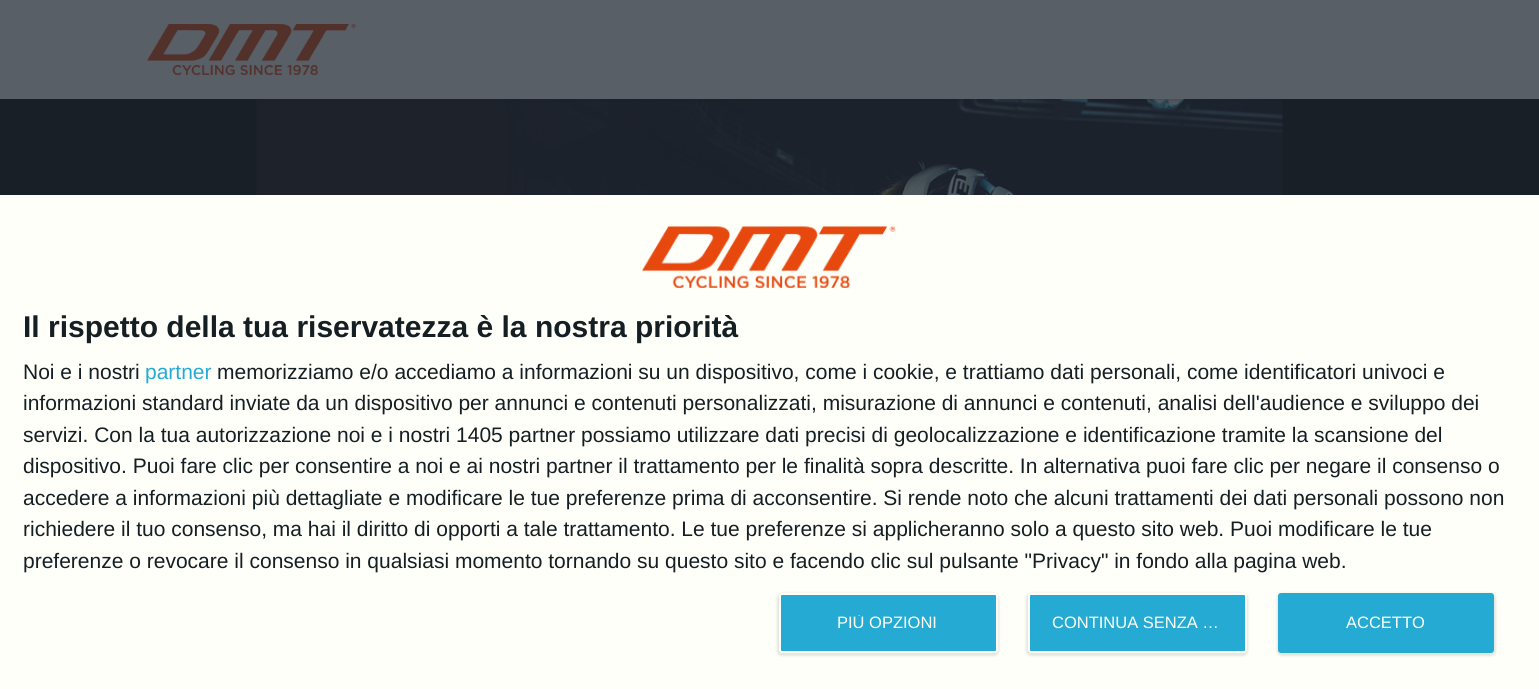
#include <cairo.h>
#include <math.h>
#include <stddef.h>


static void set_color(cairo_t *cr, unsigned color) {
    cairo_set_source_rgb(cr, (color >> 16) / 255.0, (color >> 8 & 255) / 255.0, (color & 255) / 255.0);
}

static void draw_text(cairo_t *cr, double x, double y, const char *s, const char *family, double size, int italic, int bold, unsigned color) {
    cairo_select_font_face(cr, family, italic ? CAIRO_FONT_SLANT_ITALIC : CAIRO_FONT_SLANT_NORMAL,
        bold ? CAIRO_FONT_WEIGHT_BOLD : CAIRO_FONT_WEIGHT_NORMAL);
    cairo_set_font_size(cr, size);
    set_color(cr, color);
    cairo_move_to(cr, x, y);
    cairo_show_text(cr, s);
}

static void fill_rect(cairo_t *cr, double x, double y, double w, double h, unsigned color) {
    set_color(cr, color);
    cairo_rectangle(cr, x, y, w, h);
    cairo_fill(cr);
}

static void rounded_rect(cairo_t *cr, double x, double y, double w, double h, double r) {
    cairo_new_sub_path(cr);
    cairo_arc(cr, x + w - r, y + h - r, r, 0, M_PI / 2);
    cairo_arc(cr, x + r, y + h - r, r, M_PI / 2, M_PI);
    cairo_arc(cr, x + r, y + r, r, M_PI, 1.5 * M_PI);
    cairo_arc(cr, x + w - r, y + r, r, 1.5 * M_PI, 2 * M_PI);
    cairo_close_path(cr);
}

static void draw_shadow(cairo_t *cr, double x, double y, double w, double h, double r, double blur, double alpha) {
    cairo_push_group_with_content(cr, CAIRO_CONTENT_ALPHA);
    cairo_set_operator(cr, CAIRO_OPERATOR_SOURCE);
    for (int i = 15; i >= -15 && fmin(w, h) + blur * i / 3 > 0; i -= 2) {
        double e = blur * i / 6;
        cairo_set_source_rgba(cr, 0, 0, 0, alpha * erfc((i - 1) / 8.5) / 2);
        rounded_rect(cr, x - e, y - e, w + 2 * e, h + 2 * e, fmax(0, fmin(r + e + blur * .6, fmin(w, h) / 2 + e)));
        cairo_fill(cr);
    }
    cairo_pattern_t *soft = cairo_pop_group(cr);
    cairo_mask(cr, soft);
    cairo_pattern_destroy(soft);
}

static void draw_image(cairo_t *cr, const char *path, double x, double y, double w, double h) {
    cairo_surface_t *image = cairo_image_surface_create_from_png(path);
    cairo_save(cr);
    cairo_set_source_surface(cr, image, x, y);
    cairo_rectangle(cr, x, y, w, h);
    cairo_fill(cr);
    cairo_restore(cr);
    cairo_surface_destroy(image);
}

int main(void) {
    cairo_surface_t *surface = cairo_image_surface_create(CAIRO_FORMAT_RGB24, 1539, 689);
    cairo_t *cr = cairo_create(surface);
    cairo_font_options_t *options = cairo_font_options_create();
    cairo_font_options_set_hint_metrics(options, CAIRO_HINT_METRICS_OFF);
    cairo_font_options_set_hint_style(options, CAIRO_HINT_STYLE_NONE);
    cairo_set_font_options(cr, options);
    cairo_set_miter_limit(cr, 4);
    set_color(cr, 0x595F67);
    cairo_paint(cr);
    fill_rect(cr, 0, 99, 1539, 96, 0x191F27);
    draw_image(cr, "assets/img2.png", 256, 99, 1027, 96);
    cairo_save(cr);
    cairo_rectangle(cr, 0, 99, 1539, 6);
    cairo_clip(cr);
    set_color(cr, 0x191F27);
    draw_shadow(cr, 2, 2, 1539, 99, 0, 3, 0.3);
    cairo_restore(cr);
    draw_image(cr, "assets/img1.png", 147, 24, 209, 51);
    fill_rect(cr, 0, 195, 1539, 494, 0xFFFFFA);
    draw_image(cr, "assets/img3.png", 642, 226, 254, 62);
    draw_text(cr, 23, 337, "Il rispetto della tua riservatezza è la nostra priorità", "Liberation Sans", 30, 0, 1, 0x141E23);
    draw_text(cr, 23, 379, "Noi e i nostri", "Liberation Sans", 21, 0, 0, 0x141E23);
    draw_text(cr, 145, 379, "partner", "Liberation Sans", 21, 0, 0, 0x25ABD3);
    draw_text(cr, 217, 379, "memorizziamo e/o accediamo a informazioni su un dispositivo, come i cookie, e trattiamo dati personali, come identificatori univoci e", "Liberation Sans", 21, 0, 0, 0x141E23);
    draw_text(cr, 23, 410, "informazioni standard inviate da un dispositivo per annunci e contenuti personalizzati, misurazione di annunci e contenuti, analisi dell'audience e sviluppo dei", "Liberation Sans", 21, 0, 0, 0x141E23);
    draw_text(cr, 23, 442, "servizi. Con la tua autorizzazione noi e i nostri 1405 partner possiamo utilizzare dati precisi di geolocalizzazione e identificazione tramite la scansione del", "Liberation Sans", 21, 0, 0, 0x141E23);
    draw_text(cr, 23, 473, "dispositivo. Puoi fare clic per consentire a noi e ai nostri partner il trattamento per le finalità sopra descritte. In alternativa puoi fare clic per negare il consenso o", "Liberation Sans", 21, 0, 0, 0x141E23);
    draw_text(cr, 23, 505, "accedere a informazioni più dettagliate e modificare le tue preferenze prima di acconsentire. Si rende noto che alcuni trattamenti dei dati personali possono non", "Liberation Sans", 21, 0, 0, 0x141E23);
    draw_text(cr, 23, 536, "richiedere il tuo consenso, ma hai il diritto di opporti a tale trattamento. Le tue preferenze si applicheranno solo a questo sito web. Puoi modificare le tue", "Liberation Sans", 21, 0, 0, 0x141E23);
    draw_text(cr, 23, 568, "preferenze o revocare il consenso in qualsiasi momento tornando su questo sito e facendo clic sul pulsante \"Privacy\" in fondo alla pagina web.", "Liberation Sans", 21, 0, 0, 0x141E23);
    set_color(cr, 0x000000);
    draw_shadow(cr, 777, 593, 222, 63, 5, 1, 0.1);
    set_color(cr, 0x25ABD3);
    rounded_rect(cr, 780, 594, 217, 58, 2);
    cairo_fill_preserve(cr);
    set_color(cr, 0xFFFFFA);
    cairo_stroke(cr);
    cairo_save(cr);
    cairo_rectangle(cr, 837, 615, 101, 17);
    cairo_clip(cr);
    draw_text(cr, 837, 628, "PIÙ OPZIONI", "Liberation Sans", 16.5, 0, 0, 0xFFFFFA);
    cairo_restore(cr);
    set_color(cr, 0x000000);
    draw_shadow(cr, 1026, 593, 222, 63, 5, 1, 0.1);
    set_color(cr, 0x25ABD3);
    rounded_rect(cr, 1029, 594, 217, 58, 2);
    cairo_fill_preserve(cr);
    set_color(cr, 0xFFFFFA);
    cairo_stroke(cr);
    draw_text(cr, 1052, 628, "CONTINUA SENZA …", "Liberation Sans", 16.5, 0, 0, 0xFFFFFA);
    set_color(cr, 0x000000);
    draw_shadow(cr, 1277, 593, 219, 63, 5, 1, 0.1);
    set_color(cr, 0x25ABD3);
    rounded_rect(cr, 1278, 593, 216, 60, 3);
    cairo_fill(cr);
    draw_text(cr, 1346, 628, "ACCETTO", "Liberation Sans", 16.5, 0, 0, 0xFFFFFA);
    cairo_surface_write_to_png(surface, "output.png");
    cairo_font_options_destroy(options);
    cairo_destroy(cr);
    cairo_surface_destroy(surface);
    return 0;
}
